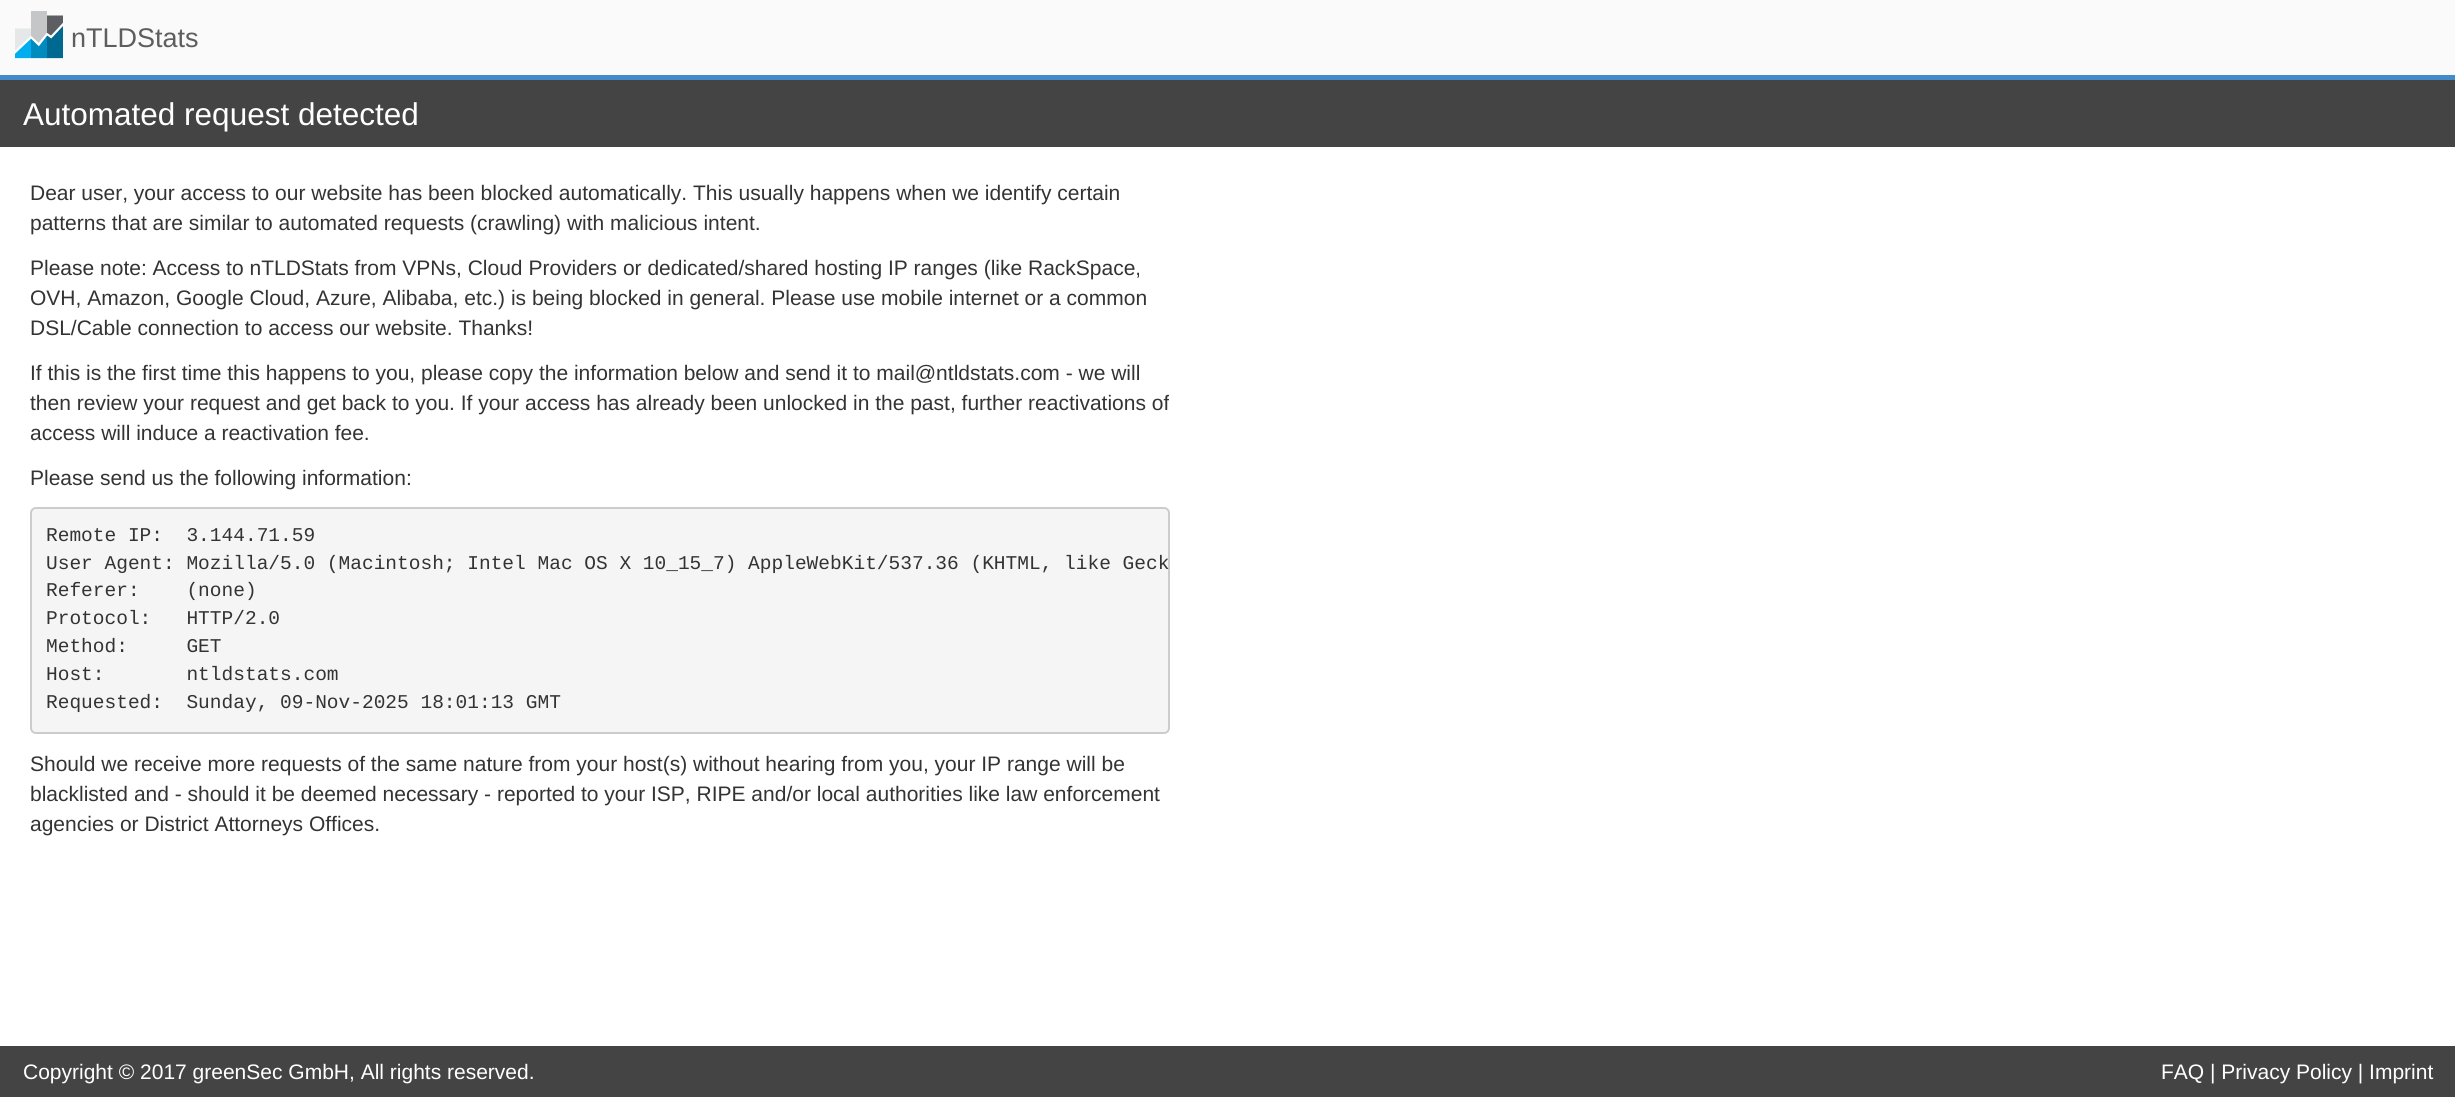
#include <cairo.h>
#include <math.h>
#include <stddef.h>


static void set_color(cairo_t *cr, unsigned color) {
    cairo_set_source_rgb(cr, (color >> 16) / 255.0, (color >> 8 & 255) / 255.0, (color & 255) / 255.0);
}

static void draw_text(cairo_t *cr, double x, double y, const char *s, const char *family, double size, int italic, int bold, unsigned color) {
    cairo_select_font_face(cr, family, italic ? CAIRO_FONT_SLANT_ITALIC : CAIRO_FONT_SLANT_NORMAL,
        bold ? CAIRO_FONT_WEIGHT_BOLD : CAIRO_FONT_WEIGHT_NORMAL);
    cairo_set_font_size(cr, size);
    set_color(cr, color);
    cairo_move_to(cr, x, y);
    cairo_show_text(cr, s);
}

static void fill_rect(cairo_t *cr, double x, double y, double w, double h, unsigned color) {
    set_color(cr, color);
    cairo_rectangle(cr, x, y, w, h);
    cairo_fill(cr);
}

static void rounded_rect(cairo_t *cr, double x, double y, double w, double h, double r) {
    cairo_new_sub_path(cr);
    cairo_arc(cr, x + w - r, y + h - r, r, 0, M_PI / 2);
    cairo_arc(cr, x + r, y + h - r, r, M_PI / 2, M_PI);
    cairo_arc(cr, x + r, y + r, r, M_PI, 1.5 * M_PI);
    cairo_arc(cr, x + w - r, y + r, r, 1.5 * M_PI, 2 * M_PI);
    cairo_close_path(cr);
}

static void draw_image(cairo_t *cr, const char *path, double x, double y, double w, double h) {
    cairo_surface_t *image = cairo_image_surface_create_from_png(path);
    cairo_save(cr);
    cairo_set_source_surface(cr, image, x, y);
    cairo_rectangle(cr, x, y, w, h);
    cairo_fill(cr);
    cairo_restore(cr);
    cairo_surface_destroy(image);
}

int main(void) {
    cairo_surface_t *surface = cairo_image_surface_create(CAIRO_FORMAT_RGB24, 2455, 1097);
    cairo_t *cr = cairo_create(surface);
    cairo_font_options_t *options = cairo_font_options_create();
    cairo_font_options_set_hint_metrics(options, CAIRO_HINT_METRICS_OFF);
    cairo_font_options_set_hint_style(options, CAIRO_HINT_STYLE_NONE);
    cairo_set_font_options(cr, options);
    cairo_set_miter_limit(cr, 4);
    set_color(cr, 0xFFFFFF);
    cairo_paint(cr);
    fill_rect(cr, 0, 0, 2455, 75, 0xFAFAFA);
    fill_rect(cr, 0, 75, 2455, 5, 0x428BCA);
    draw_image(cr, "assets/img1.png", 15, 11, 48, 48);
    draw_text(cr, 71, 47, "nTLDStats", "Liberation Sans", 27, 0, 0, 0x5E5E5E);
    fill_rect(cr, 0, 80, 2455, 67, 0x444444);
    draw_text(cr, 23, 125, "Automated request detected", "Liberation Sans", 31.5, 0, 0, 0xFFFFFF);
    draw_text(cr, 30, 200, "Dear user, your access to our website has been blocked automatically. This usually happens when we identify certain", "Liberation Sans", 21, 0, 0, 0x333333);
    draw_text(cr, 30, 230, "patterns that are similar to automated requests (crawling) with malicious intent.", "Liberation Sans", 21, 0, 0, 0x333333);
    draw_text(cr, 30, 275, "Please note: Access to nTLDStats from VPNs, Cloud Providers or dedicated/shared hosting IP ranges (like RackSpace,", "Liberation Sans", 21, 0, 0, 0x333333);
    draw_text(cr, 30, 305, "OVH, Amazon, Google Cloud, Azure, Alibaba, etc.) is being blocked in general. Please use mobile internet or a common", "Liberation Sans", 21, 0, 0, 0x333333);
    draw_text(cr, 30, 335, "DSL/Cable connection to access our website. Thanks!", "Liberation Sans", 21, 0, 0, 0x333333);
    draw_text(cr, 30, 380, "If this is the first time this happens to you, please copy the information below and send it to mail@ntldstats.com - we will", "Liberation Sans", 21, 0, 0, 0x333333);
    draw_text(cr, 30, 410, "then review your request and get back to you. If your access has already been unlocked in the past, further reactivations of", "Liberation Sans", 21, 0, 0, 0x333333);
    draw_text(cr, 30, 440, "access will induce a reactivation fee.", "Liberation Sans", 21, 0, 0, 0x333333);
    draw_text(cr, 30, 485, "Please send us the following information:", "Liberation Sans", 21, 0, 0, 0x333333);
    set_color(cr, 0xF5F5F5);
    rounded_rect(cr, 31, 508, 1138, 225, 5);
    cairo_fill_preserve(cr);
    set_color(cr, 0xCCCCCC);
    cairo_stroke(cr);
    draw_text(cr, 46, 541, "Remote IP:  3.144.71.59", "Liberation Mono", 19.5, 0, 0, 0x333333);
    draw_text(cr, 46, 569, "User Agent: Mozilla/5.0 (Macintosh; Intel Mac OS X 10_15_7) AppleWebKit/537.36 (KHTML, like Geck", "Liberation Mono", 19.5, 0, 0, 0x333333);
    draw_text(cr, 46, 596, "Referer:    (none)", "Liberation Mono", 19.5, 0, 0, 0x333333);
    draw_text(cr, 46, 624, "Protocol:   HTTP/2.0", "Liberation Mono", 19.5, 0, 0, 0x333333);
    draw_text(cr, 46, 652, "Method:     GET", "Liberation Mono", 19.5, 0, 0, 0x333333);
    draw_text(cr, 46, 680, "Host:       ntldstats.com", "Liberation Mono", 19.5, 0, 0, 0x333333);
    draw_text(cr, 46, 708, "Requested:  Sunday, 09-Nov-2025 18:01:13 GMT", "Liberation Mono", 19.5, 0, 0, 0x333333);
    draw_text(cr, 30, 771, "Should we receive more requests of the same nature from your host(s) without hearing from you, your IP range will be", "Liberation Sans", 21, 0, 0, 0x333333);
    draw_text(cr, 30, 801, "blacklisted and - should it be deemed necessary - reported to your ISP, RIPE and/or local authorities like law enforcement", "Liberation Sans", 21, 0, 0, 0x333333);
    draw_text(cr, 30, 831, "agencies or District Attorneys Offices.", "Liberation Sans", 21, 0, 0, 0x333333);
    fill_rect(cr, 0, 1046, 2455, 51, 0x444444);
    draw_text(cr, 23, 1079, "Copyright © 2017 greenSec GmbH, All rights reserved.", "Liberation Sans", 21, 0, 0, 0xFFFFFF);
    draw_text(cr, 2161, 1079, "FAQ | Privacy Policy | Imprint", "Liberation Sans", 21, 0, 0, 0xFFFFFF);
    cairo_surface_write_to_png(surface, "output.png");
    cairo_font_options_destroy(options);
    cairo_destroy(cr);
    cairo_surface_destroy(surface);
    return 0;
}
